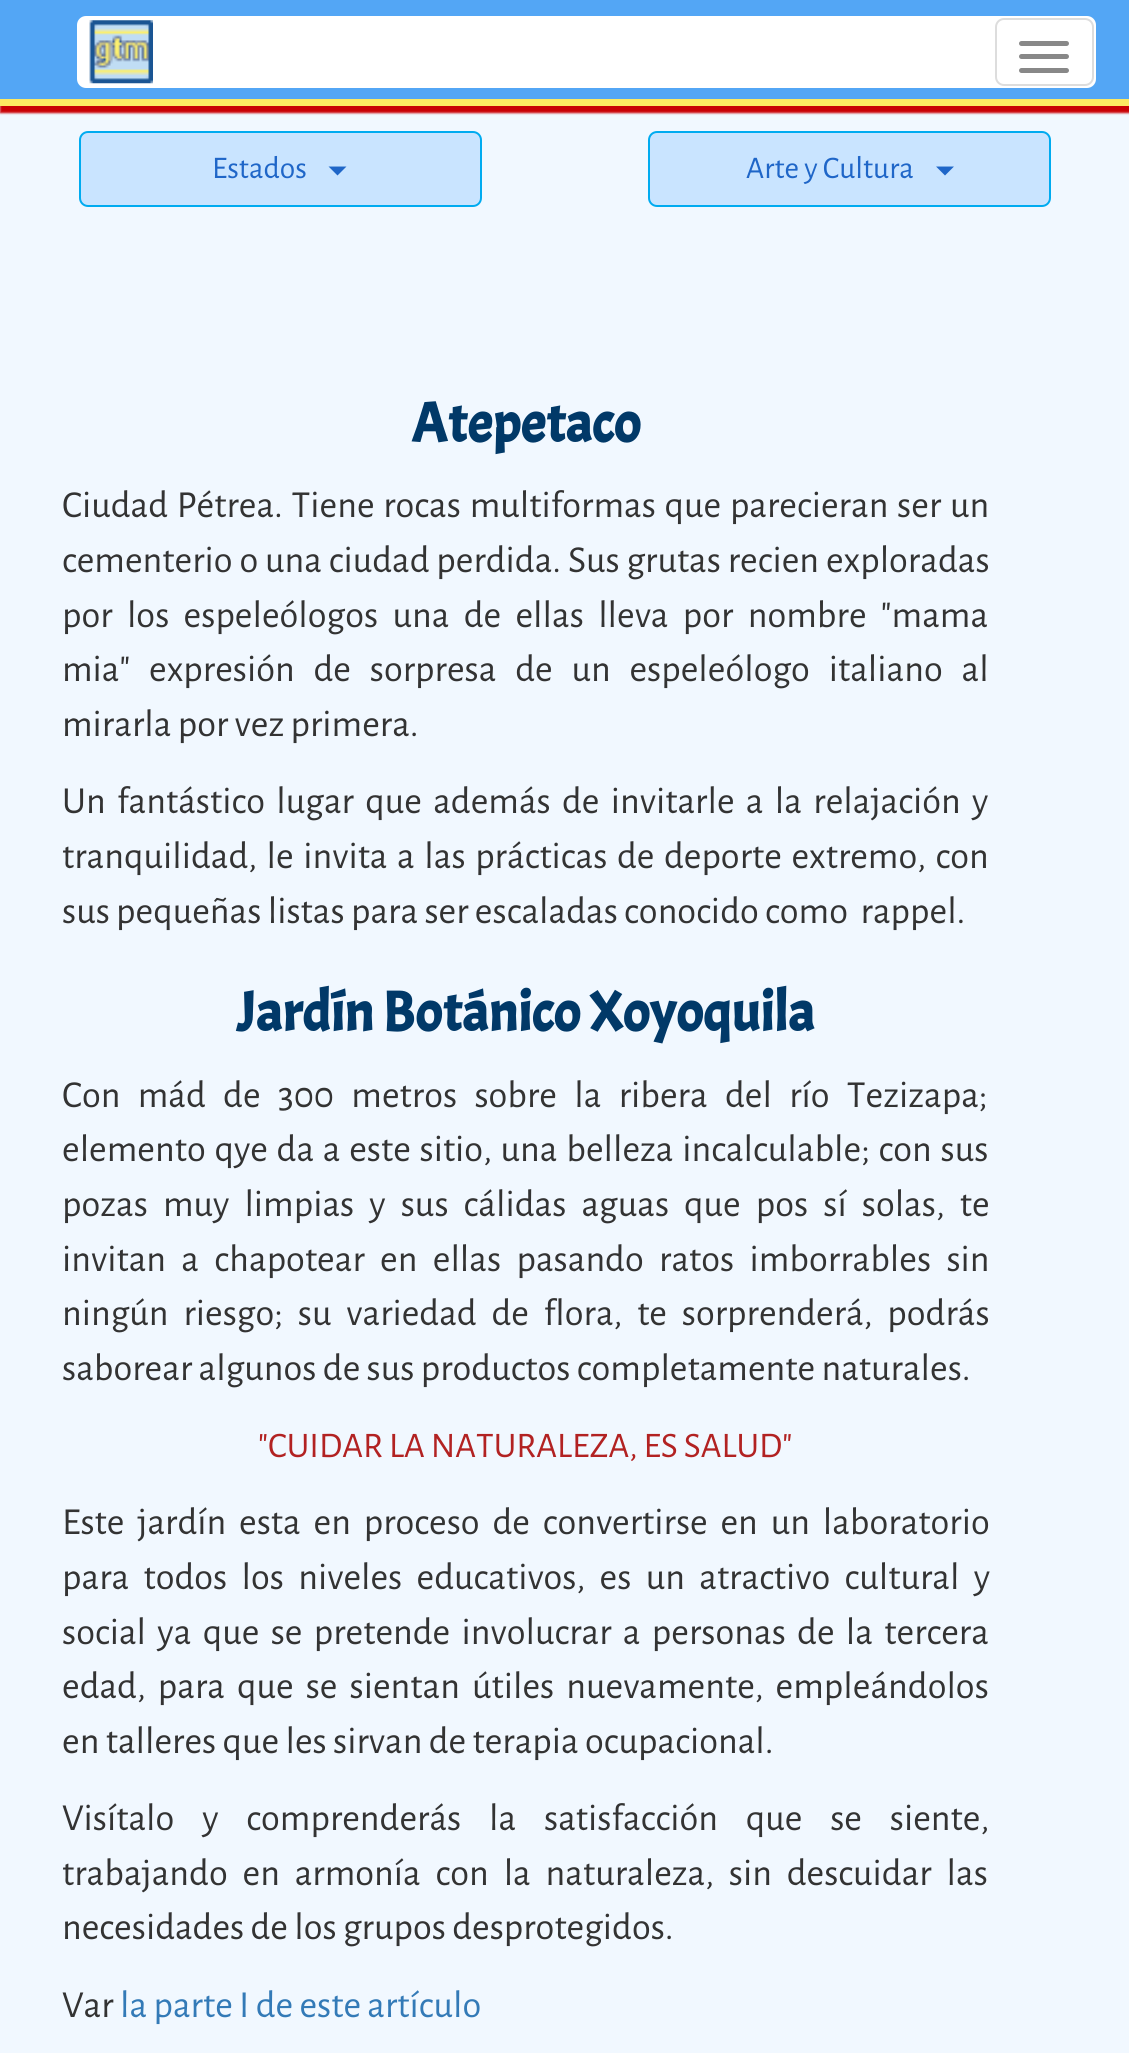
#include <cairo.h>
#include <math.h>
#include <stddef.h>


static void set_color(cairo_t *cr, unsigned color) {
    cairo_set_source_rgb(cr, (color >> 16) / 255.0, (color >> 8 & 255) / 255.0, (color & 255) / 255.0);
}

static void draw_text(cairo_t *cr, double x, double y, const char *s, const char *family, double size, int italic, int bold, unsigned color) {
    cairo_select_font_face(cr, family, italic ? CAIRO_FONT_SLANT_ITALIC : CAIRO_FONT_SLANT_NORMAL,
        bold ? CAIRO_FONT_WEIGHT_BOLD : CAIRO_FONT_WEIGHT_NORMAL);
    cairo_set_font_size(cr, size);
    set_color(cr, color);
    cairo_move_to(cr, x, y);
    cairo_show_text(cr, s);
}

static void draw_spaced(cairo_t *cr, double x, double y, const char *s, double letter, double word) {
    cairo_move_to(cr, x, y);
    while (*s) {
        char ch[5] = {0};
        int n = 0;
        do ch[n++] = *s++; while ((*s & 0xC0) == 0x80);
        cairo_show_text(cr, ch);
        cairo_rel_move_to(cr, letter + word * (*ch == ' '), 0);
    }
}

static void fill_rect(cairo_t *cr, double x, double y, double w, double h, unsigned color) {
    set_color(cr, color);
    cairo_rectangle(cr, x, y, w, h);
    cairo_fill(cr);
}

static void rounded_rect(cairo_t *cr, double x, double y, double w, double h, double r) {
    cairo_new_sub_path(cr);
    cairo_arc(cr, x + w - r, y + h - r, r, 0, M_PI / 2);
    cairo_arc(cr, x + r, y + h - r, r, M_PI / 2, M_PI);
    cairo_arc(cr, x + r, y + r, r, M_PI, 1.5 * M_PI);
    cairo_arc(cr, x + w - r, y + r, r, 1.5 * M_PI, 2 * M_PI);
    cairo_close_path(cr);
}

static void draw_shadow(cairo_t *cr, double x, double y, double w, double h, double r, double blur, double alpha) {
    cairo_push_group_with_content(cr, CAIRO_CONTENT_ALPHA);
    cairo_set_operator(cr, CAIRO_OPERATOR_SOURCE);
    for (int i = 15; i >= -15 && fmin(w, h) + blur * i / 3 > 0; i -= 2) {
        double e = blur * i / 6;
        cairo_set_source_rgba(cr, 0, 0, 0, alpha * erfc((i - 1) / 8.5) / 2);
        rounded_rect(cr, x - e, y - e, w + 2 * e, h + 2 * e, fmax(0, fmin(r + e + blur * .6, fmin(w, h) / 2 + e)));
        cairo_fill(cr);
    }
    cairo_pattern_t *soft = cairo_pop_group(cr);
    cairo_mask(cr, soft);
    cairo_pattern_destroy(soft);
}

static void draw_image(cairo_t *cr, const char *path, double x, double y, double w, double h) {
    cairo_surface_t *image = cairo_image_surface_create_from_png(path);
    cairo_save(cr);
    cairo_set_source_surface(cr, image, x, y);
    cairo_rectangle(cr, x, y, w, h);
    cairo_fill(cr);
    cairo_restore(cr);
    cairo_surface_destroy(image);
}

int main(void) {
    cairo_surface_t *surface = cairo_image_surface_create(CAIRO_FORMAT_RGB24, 1129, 2053);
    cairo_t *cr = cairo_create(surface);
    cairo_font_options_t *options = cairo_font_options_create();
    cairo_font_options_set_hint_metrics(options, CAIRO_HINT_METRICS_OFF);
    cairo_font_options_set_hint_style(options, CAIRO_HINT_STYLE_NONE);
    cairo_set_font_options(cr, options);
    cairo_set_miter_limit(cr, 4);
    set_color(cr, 0xF1F8FF);
    cairo_paint(cr);
    set_color(cr, 0xC90004);
    draw_shadow(cr, 0, -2, 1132, 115, 0, 1, 1);
    fill_rect(cr, 0, 0, 1129, 99, 0x53A6F5);
    fill_rect(cr, 0, 99, 1129, 7, 0xFDE962);
    set_color(cr, 0xFFFFFF);
    rounded_rect(cr, 78, 17, 1017, 70, 8);
    cairo_fill_preserve(cr);
    cairo_stroke(cr);
    draw_image(cr, "assets/img1.png", 89, 20, 64, 64);
    rounded_rect(cr, 996, 19, 97, 66, 8);
    set_color(cr, 0xDDDDDD);
    cairo_stroke(cr);
    set_color(cr, 0x888888);
    rounded_rect(cr, 1019, 41, 50, 5, 2.5);
    cairo_fill(cr);
    rounded_rect(cr, 1019, 54, 50, 5, 2.5);
    cairo_fill(cr);
    rounded_rect(cr, 1019, 68, 50, 5, 2.5);
    cairo_fill(cr);
    set_color(cr, 0xC9E4FF);
    rounded_rect(cr, 80, 132, 401, 74, 8);
    cairo_fill_preserve(cr);
    set_color(cr, 0x00ABF0);
    cairo_stroke(cr);
    draw_text(cr, 212, 178, "Estados", "Alegreya Sans", 31.5, 0, 0, 0x1F66C8);
    cairo_new_path(cr);
    cairo_move_to(cr, 328.5, 166.5);
    cairo_line_to(cr, 346.5, 166.5);
    cairo_line_to(cr, 337.5, 175.5);
    cairo_close_path(cr);
    cairo_fill(cr);
    set_color(cr, 0xC9E4FF);
    rounded_rect(cr, 649, 132, 401, 74, 8);
    cairo_fill_preserve(cr);
    set_color(cr, 0x00ABF0);
    cairo_stroke(cr);
    draw_text(cr, 746, 178, "Arte y Cultura", "Alegreya Sans", 31.5, 0, 0, 0x1F66C8);
    cairo_new_path(cr);
    cairo_move_to(cr, 936, 166.5);
    cairo_line_to(cr, 954, 166.5);
    cairo_line_to(cr, 945, 175.5);
    cairo_close_path(cr);
    cairo_fill(cr);
    draw_text(cr, 411, 442, "Atepetaco", "Acme", 56.25, 0, 1, 0x013968);
    cairo_select_font_face(cr, "Alegreya Sans", CAIRO_FONT_SLANT_NORMAL, CAIRO_FONT_WEIGHT_NORMAL);
    cairo_set_font_size(cr, 38.25);
    set_color(cr, 0x333333);
    draw_spaced(cr, 62, 517, "Ciudad Pétrea. Tiene rocas multiformas que parecieran ser un", 0, 2.4);
    draw_spaced(cr, 62, 572, "cementerio o una ciudad perdida. Sus grutas recien exploradas", 0, 0.5);
    draw_spaced(cr, 62, 627, "por los espeleólogos una de ellas lleva por nombre \"mama", 0, 8);
    draw_spaced(cr, 62, 681, "mia\" expresión de sorpresa de un espeleólogo italiano al", 0, 12.5);
    draw_text(cr, 62, 736, "mirarla por vez primera.", "Alegreya Sans", 38.25, 0, 0, 0x333333);
    draw_spaced(cr, 62, 813, "Un fantástico lugar que además de invitarle a la relajación y", 0, 5);
    draw_spaced(cr, 62, 868, "tranquilidad, le invita a las prácticas de deporte extremo, con", 0, 3.25);
    draw_text(cr, 62, 923, "sus pequeñas listas para ser escaladas conocido como  rappel.", "Alegreya Sans", 38.25, 0, 0, 0x333333);
    draw_text(cr, 236, 1031, "Jardín Botánico Xoyoquila", "Acme", 56.25, 0, 1, 0x013968);
    cairo_select_font_face(cr, "Alegreya Sans", CAIRO_FONT_SLANT_NORMAL, CAIRO_FONT_WEIGHT_NORMAL);
    cairo_set_font_size(cr, 38.25);
    set_color(cr, 0x333333);
    draw_spaced(cr, 62, 1107, "Con mád de 300 metros sobre la ribera del río Tezizapa;", 0, 11);
    draw_spaced(cr, 62, 1161, "elemento qye da a este sitio, una belleza incalculable; con sus", 0, 2.4);
    draw_spaced(cr, 62, 1216, "pozas muy limpias y sus cálidas aguas que pos sí solas, te", 0, 8.75);
    draw_spaced(cr, 62, 1271, "invitan a chapotear en ellas pasando ratos imborrables sin", 0, 9);
    draw_spaced(cr, 62, 1325, "ningún riesgo; su variedad de flora, te sorprenderá, podrás", 0, 8.5);
    draw_text(cr, 62, 1380, "saborear algunos de sus productos completamente naturales.", "Alegreya Sans", 38.25, 0, 0, 0x333333);
    draw_text(cr, 258, 1457, "\"CUIDAR LA NATURALEZA, ES SALUD\"", "Alegreya Sans", 36, 0, 0, 0xB22222);
    cairo_set_font_size(cr, 38.25);
    set_color(cr, 0x333333);
    draw_spaced(cr, 62, 1534, "Este jardín esta en proceso de convertirse en un laboratorio", 0, 6.5);
    draw_spaced(cr, 62, 1589, "para todos los niveles educativos, es un atractivo cultural y", 0, 8);
    draw_spaced(cr, 62, 1644, "social ya que se pretende involucrar a personas de la tercera", 0, 5);
    draw_spaced(cr, 62, 1698, "edad, para que se sientan útiles nuevamente, empleándolos", 0, 5.75);
    draw_text(cr, 62, 1753, "en talleres que les sirvan de terapia ocupacional.", "Alegreya Sans", 38.25, 0, 0, 0x333333);
    draw_spaced(cr, 62, 1830, "Visítalo y comprenderás la satisfacción que se siente,", 0, 21.5);
    draw_spaced(cr, 62, 1885, "trabajando en armonía con la naturaleza, sin descuidar las", 0, 8.5);
    draw_text(cr, 62, 1939, "necesidades de los grupos desprotegidos.", "Alegreya Sans", 38.25, 0, 0, 0x333333);
    draw_text(cr, 62, 2017, "Var", "Alegreya Sans", 38.25, 0, 0, 0x333333);
    draw_text(cr, 120, 2017, "la parte I de este artículo", "Alegreya Sans", 38.25, 0, 0, 0x337AB7);
    cairo_surface_write_to_png(surface, "output.png");
    cairo_font_options_destroy(options);
    cairo_destroy(cr);
    cairo_surface_destroy(surface);
    return 0;
}
